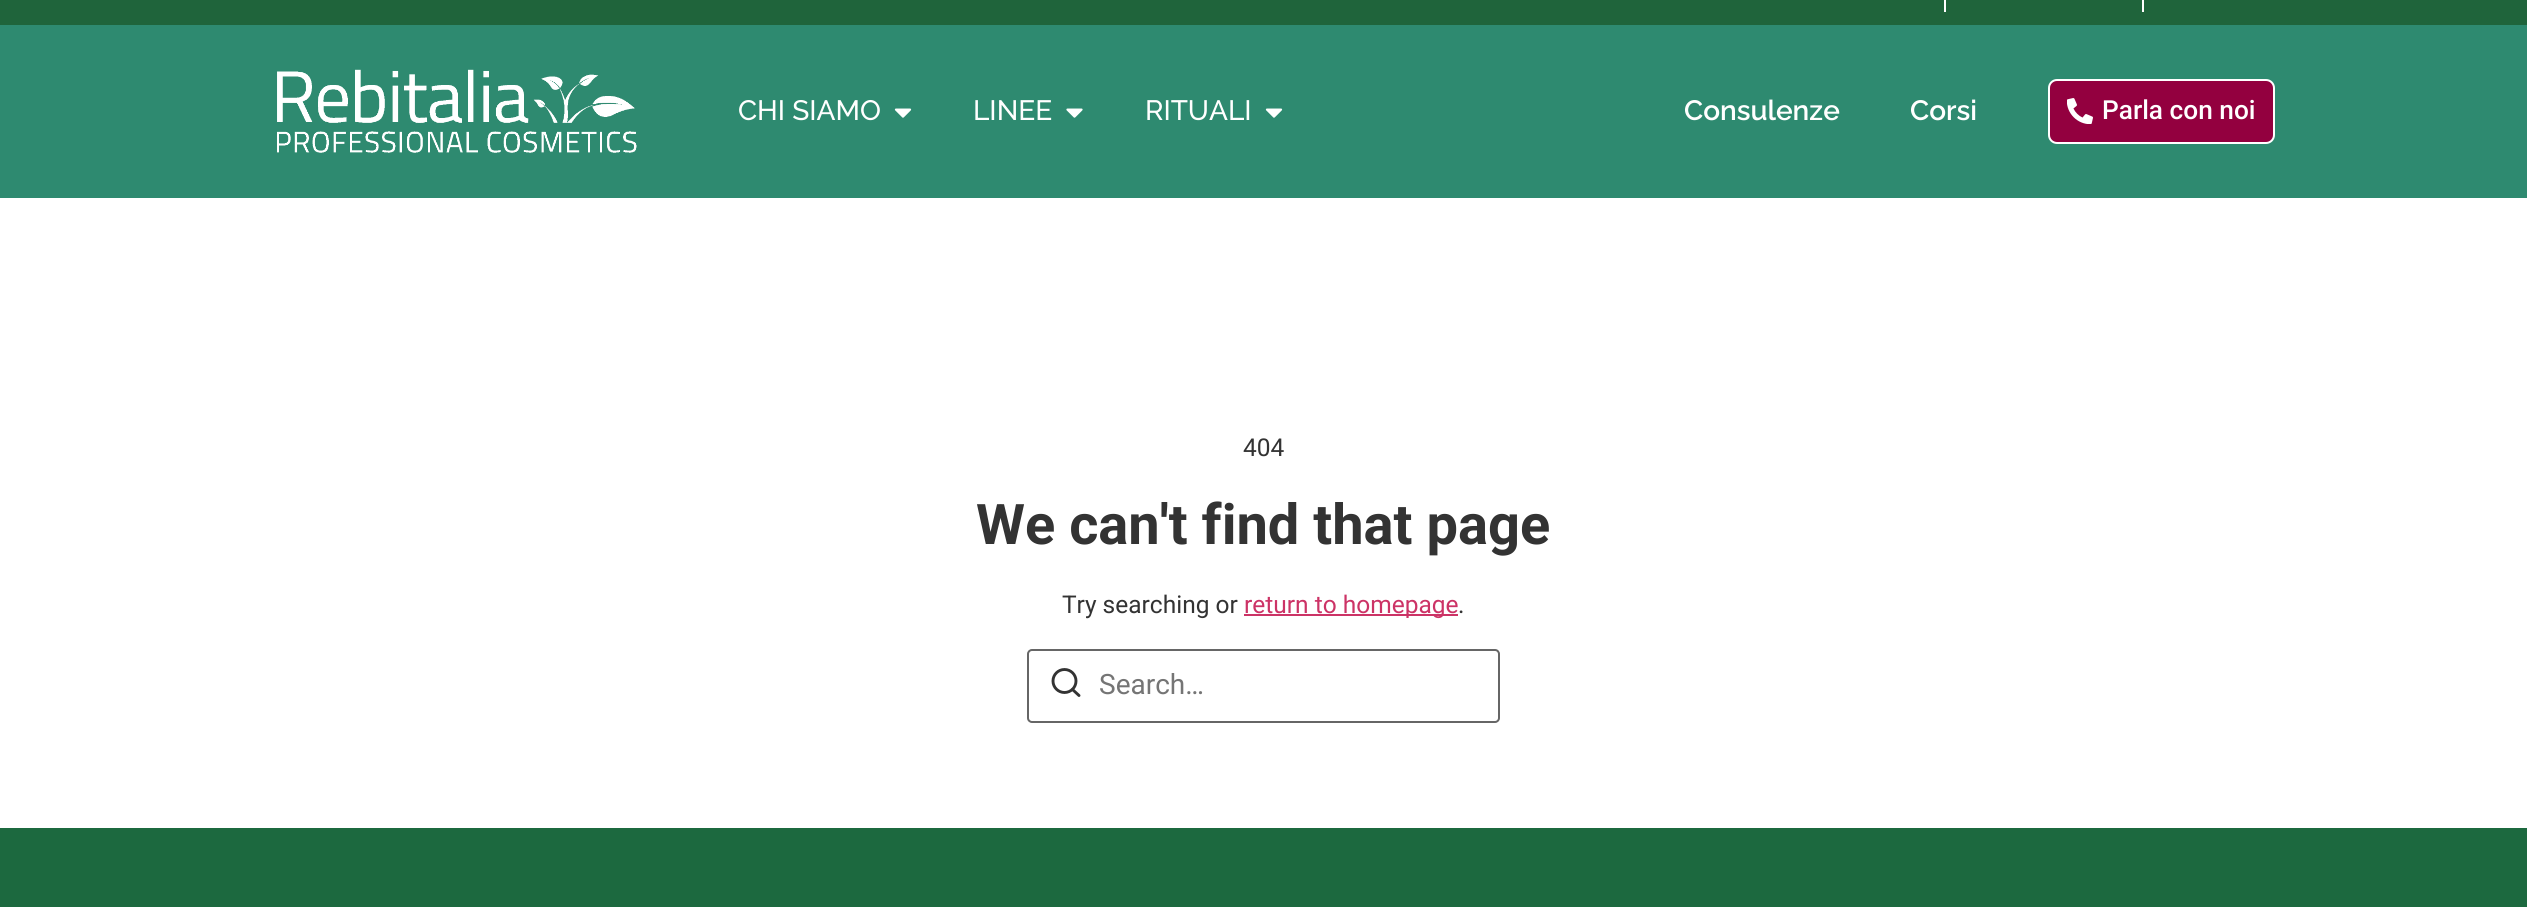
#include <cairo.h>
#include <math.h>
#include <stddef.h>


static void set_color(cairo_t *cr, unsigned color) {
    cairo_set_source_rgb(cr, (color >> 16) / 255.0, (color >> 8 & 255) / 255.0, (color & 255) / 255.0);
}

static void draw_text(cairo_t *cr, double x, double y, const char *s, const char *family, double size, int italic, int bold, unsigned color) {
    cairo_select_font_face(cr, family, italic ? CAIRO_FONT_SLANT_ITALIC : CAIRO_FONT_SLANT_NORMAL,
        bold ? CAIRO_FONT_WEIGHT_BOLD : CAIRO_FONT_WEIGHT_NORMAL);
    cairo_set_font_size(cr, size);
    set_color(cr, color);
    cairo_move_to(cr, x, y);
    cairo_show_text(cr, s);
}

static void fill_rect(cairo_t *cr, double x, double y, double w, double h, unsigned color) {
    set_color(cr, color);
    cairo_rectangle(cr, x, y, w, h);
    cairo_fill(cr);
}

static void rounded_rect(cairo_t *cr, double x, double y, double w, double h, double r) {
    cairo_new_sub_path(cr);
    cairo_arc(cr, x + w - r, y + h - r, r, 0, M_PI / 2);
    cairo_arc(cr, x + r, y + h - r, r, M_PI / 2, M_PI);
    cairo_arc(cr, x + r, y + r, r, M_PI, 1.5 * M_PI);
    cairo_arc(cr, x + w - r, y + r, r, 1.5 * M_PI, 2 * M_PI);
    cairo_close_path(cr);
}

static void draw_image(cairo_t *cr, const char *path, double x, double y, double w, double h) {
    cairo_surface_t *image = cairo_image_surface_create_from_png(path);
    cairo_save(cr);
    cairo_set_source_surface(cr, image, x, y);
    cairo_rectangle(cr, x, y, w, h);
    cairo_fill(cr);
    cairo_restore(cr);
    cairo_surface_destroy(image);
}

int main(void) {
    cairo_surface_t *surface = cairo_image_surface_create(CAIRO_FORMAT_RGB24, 2527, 907);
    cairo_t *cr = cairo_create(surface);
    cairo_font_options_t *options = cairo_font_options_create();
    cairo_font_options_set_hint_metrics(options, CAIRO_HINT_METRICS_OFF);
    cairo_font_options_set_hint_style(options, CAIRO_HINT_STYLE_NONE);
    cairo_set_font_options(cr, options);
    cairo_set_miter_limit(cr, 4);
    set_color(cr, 0xFFFFFF);
    cairo_paint(cr);
    fill_rect(cr, 0, 0, 2527, 25, 0x1F643B);
    fill_rect(cr, 1944, 0, 2, 12, 0xFFFFFF);
    fill_rect(cr, 2142, 0, 2, 12, 0xFFFFFF);
    fill_rect(cr, 0, 25, 2527, 173, 0x2E8A70);
    draw_image(cr, "assets/img1.png", 277, 69, 360, 84);
    draw_text(cr, 738, 120, "CHI SIAMO", "Raleway Medium", 28, 0, 0, 0xFFFFFF);
    draw_image(cr, "assets/img2.png", 894, 108, 18, 10);
    draw_text(cr, 973, 120, "LINEE", "Raleway Medium", 28, 0, 0, 0xFFFFFF);
    draw_image(cr, "assets/img3.png", 1066, 108, 17, 10);
    draw_text(cr, 1145, 120, "RITUALI", "Raleway Medium", 28, 0, 0, 0xFFFFFF);
    draw_image(cr, "assets/img2.png", 1265, 108, 18, 10);
    draw_text(cr, 1684, 120, "Consulenze", "Raleway SemiBold", 28, 0, 0, 0xFFFFFF);
    draw_text(cr, 1910, 120, "Corsi", "Raleway SemiBold", 28, 0, 0, 0xFFFFFF);
    set_color(cr, 0x93003F);
    rounded_rect(cr, 2049, 80, 225, 63, 8);
    cairo_fill_preserve(cr);
    set_color(cr, 0xFFFFFF);
    cairo_stroke(cr);
    draw_image(cr, "assets/img4.png", 2067, 98, 26, 26);
    draw_text(cr, 2102, 119, "Parla con noi", "Roboto Medium", 26.25, 0, 0, 0xFFFFFF);
    draw_text(cr, 1243, 456, "404", "Roboto", 24.5, 0, 0, 0x333333);
    draw_text(cr, 976, 544, "We can't find that page", "Roboto", 56, 0, 1, 0x333333);
    draw_text(cr, 1062, 613, "Try searching or", "Roboto", 24.5, 0, 0, 0x333333);
    fill_rect(cr, 1244, 614, 214, 2, 0xCC3366);
    draw_text(cr, 1244, 613, "return to homepage", "Roboto", 24.5, 0, 0, 0xCC3366);
    draw_text(cr, 1458, 613, ".", "Roboto", 24.5, 0, 0, 0x333333);
    rounded_rect(cr, 1028, 650, 471, 72, 4);
    set_color(cr, 0x666666);
    cairo_stroke(cr);
    cairo_arc(cr, 1064.5, 681, 11.5, 0, 2 * M_PI);
    set_color(cr, 0x333333);
    cairo_set_line_width(cr, 2.9);
    cairo_stroke(cr);
    cairo_new_path(cr);
    cairo_move_to(cr, 1079, 695.5);
    cairo_line_to(cr, 1072.5, 689.5);
    cairo_set_line_cap(cr, CAIRO_LINE_CAP_ROUND);
    cairo_set_line_join(cr, CAIRO_LINE_JOIN_ROUND);
    cairo_stroke(cr);
    draw_text(cr, 1099, 694, "Search…", "Roboto", 28, 0, 0, 0x757575);
    fill_rect(cr, 0, 828, 2527, 79, 0x1C693F);
    cairo_surface_write_to_png(surface, "output.png");
    cairo_font_options_destroy(options);
    cairo_destroy(cr);
    cairo_surface_destroy(surface);
    return 0;
}
